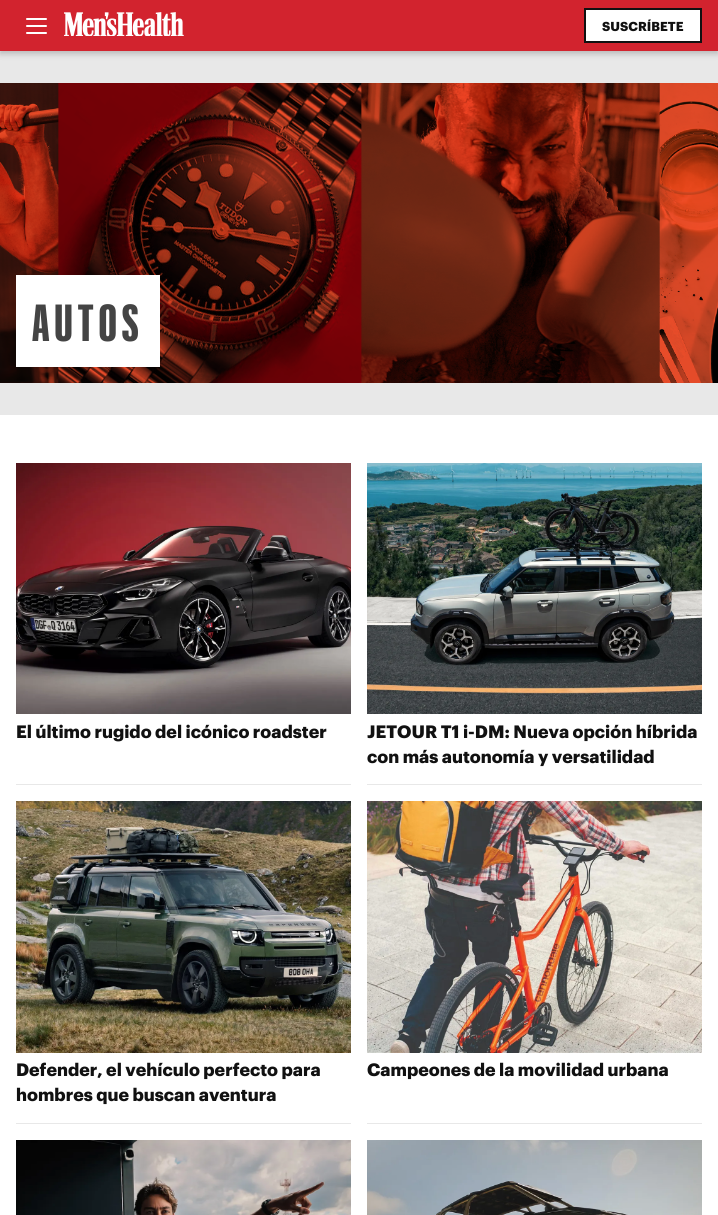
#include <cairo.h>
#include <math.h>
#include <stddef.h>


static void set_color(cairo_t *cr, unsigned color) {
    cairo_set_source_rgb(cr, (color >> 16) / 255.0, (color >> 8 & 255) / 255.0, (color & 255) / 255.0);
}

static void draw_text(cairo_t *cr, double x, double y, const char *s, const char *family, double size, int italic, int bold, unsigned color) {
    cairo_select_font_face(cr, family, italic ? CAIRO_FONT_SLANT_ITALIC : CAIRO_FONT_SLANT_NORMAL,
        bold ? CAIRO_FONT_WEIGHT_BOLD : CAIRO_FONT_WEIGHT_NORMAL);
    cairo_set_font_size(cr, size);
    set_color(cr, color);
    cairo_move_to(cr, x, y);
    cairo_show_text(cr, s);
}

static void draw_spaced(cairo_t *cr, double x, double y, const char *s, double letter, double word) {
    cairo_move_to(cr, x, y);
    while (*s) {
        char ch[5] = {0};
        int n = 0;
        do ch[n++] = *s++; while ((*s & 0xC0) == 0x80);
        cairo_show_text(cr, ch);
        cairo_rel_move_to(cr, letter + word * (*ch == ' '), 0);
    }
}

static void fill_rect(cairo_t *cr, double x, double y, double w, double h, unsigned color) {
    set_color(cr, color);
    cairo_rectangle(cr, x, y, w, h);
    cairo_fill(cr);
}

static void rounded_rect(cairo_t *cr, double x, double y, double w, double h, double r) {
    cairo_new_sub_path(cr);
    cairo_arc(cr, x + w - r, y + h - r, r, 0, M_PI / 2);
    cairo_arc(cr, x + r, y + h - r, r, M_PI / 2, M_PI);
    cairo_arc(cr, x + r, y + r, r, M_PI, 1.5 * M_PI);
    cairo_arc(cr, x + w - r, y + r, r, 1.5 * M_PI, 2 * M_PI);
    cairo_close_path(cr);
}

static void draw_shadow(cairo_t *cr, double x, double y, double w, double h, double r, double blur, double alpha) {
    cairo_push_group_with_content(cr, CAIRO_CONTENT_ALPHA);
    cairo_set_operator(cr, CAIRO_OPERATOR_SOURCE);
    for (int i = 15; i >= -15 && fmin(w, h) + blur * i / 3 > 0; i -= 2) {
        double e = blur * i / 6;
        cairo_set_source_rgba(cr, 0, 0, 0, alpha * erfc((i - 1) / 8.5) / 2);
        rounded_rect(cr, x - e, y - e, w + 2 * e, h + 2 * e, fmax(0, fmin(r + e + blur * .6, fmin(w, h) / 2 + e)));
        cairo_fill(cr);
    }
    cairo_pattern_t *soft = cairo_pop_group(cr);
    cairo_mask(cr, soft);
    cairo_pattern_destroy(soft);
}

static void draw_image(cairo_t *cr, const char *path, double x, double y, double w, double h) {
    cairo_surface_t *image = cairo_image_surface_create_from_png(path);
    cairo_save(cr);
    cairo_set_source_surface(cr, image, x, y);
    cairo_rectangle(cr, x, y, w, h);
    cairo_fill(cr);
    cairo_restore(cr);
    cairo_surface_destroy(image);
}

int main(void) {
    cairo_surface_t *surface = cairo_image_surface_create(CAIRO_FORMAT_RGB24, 718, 1215);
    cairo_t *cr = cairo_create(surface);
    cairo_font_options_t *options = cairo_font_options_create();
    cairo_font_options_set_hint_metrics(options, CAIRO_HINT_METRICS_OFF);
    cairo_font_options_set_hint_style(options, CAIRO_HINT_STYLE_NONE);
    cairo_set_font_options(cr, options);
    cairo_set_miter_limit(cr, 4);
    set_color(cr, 0xFFFFFF);
    cairo_paint(cr);
    fill_rect(cr, 0, 51, 718, 32, 0xE8E8E8);
    set_color(cr, 0x000000);
    draw_shadow(cr, 0, 3, 718, 51, 0, 3, 0.2);
    fill_rect(cr, 0, 0, 718, 51, 0xD2232E);
    set_color(cr, 0xFFFFFF);
    rounded_rect(cr, 26, 25, 21, 2, 1);
    cairo_fill(cr);
    rounded_rect(cr, 26, 18, 21, 2, 1);
    cairo_fill(cr);
    rounded_rect(cr, 26, 32, 21, 2, 1);
    cairo_fill(cr);
    draw_image(cr, "assets/img1.png", 64, 12, 120, 24);
    cairo_rectangle(cr, 585, 9, 116, 33);
    cairo_fill_preserve(cr);
    set_color(cr, 0x111111);
    cairo_stroke(cr);
    draw_text(cr, 602, 31, "SUSCRÍBETE", "Graphik", 12.75, 0, 1, 0x111111);
    draw_image(cr, "assets/img2.png", 0, 83, 718, 300);
    fill_rect(cr, 16, 275, 144, 92, 0xFFFFFF);
    cairo_select_font_face(cr, "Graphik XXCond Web", CAIRO_FONT_SLANT_NORMAL, CAIRO_FONT_WEIGHT_BOLD);
    cairo_set_font_size(cr, 51);
    set_color(cr, 0x444444);
    draw_spaced(cr, 32, 341, "AUTOS", 4.75, 0);
    fill_rect(cr, 0, 383, 718, 32, 0xE8E8E8);
    fill_rect(cr, 16, 784, 335, 1, 0xE8E8E8);
    draw_image(cr, "assets/img3.png", 16, 463, 335, 251);
    draw_text(cr, 16, 738, "El último rugido del icónico roadster", "Graphik", 17.6, 0, 1, 0x111111);
    fill_rect(cr, 367, 784, 335, 1, 0xE8E8E8);
    draw_image(cr, "assets/img4.png", 367, 463, 335, 251);
    draw_text(cr, 367, 738, "JETOUR T1 i-DM: Nueva opción híbrida", "Graphik", 17.6, 0, 1, 0x111111);
    draw_text(cr, 367, 763, "con más autonomía y versatilidad", "Graphik", 17.6, 0, 1, 0x111111);
    fill_rect(cr, 16, 1123, 335, 1, 0xE8E8E8);
    draw_image(cr, "assets/img5.png", 16, 801, 335, 252);
    draw_text(cr, 16, 1076, "Defender, el vehículo perfecto para", "Graphik", 17.6, 0, 1, 0x111111);
    draw_text(cr, 16, 1101, "hombres que buscan aventura", "Graphik", 17.6, 0, 1, 0x111111);
    fill_rect(cr, 367, 1123, 335, 1, 0xE8E8E8);
    draw_image(cr, "assets/img6.png", 367, 801, 335, 252);
    draw_text(cr, 367, 1076, "Campeones de la movilidad urbana", "Graphik", 17.6, 0, 1, 0x111111);
    draw_image(cr, "assets/img7.png", 16, 1140, 335, 75);
    draw_image(cr, "assets/img8.png", 367, 1140, 335, 75);
    cairo_surface_write_to_png(surface, "output.png");
    cairo_font_options_destroy(options);
    cairo_destroy(cr);
    cairo_surface_destroy(surface);
    return 0;
}
